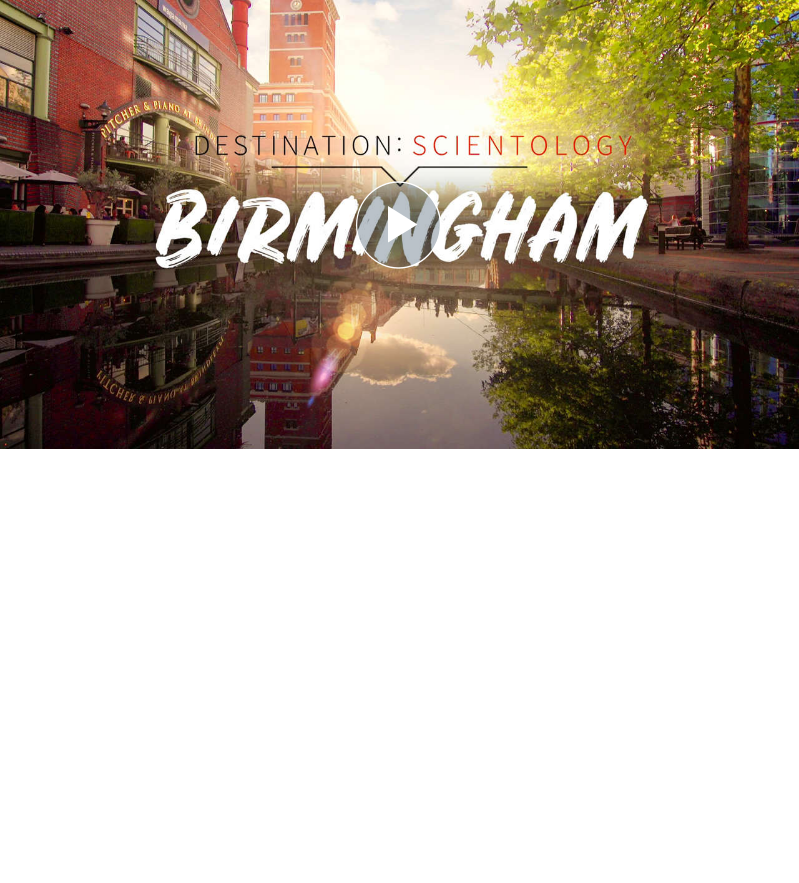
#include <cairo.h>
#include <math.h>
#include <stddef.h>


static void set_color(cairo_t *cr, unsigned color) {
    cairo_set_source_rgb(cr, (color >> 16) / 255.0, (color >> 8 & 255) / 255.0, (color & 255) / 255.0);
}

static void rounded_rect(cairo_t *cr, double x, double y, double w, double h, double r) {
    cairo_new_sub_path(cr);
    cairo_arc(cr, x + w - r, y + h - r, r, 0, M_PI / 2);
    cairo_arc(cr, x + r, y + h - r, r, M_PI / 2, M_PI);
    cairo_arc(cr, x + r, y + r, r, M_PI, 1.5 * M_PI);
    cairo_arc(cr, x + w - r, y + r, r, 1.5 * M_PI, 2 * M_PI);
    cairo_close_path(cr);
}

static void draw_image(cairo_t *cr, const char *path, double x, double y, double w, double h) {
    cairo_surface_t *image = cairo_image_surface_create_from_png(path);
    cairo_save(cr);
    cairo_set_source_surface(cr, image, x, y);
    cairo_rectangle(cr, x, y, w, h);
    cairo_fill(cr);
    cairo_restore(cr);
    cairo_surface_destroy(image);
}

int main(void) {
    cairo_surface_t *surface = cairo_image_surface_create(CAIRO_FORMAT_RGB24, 799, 883);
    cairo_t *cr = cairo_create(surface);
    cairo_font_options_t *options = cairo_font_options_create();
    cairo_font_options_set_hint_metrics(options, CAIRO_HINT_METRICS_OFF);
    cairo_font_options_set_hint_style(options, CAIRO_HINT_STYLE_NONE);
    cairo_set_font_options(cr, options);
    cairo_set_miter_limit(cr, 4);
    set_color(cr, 0xFFFFFF);
    cairo_paint(cr);
    draw_image(cr, "assets/img1.png", 0, 0, 799, 449);
    cairo_set_source_rgba(cr, 0.094, 0.196, 0.298, 0.3);
    cairo_new_path(cr);
    cairo_move_to(cr, 398.5, 182);
    cairo_curve_to(cr, 421.5, 182, 440.5, 201.5, 440.5, 225);
    cairo_curve_to(cr, 440.5, 248.5, 421.5, 268, 398.5, 268);
    cairo_curve_to(cr, 375.5, 268, 356.5, 248.5, 356.5, 225);
    cairo_curve_to(cr, 356.5, 201.5, 375.5, 182, 398.5, 182);
    cairo_close_path(cr);
    cairo_fill(cr);
    cairo_save(cr);
    cairo_rectangle(cr, 356, 181, 85, 88);
    cairo_clip(cr);
    rounded_rect(cr, 356, 181, 88, 88, 44);
    cairo_clip(cr);
    cairo_new_path(cr);
    cairo_move_to(cr, 398.5, 182);
    cairo_curve_to(cr, 421.5, 182, 440.5, 201.5, 440.5, 225);
    cairo_curve_to(cr, 440.5, 248.5, 421.5, 268, 398.5, 268);
    cairo_curve_to(cr, 375.5, 268, 356.5, 248.5, 356.5, 225);
    cairo_curve_to(cr, 356.5, 201.5, 375.5, 182, 398.5, 182);
    cairo_close_path(cr);
    set_color(cr, 0xFFFFFF);
    cairo_set_line_width(cr, 1.4);
    cairo_stroke(cr);
    cairo_restore(cr);
    set_color(cr, 0xFFFFFF);
    cairo_new_path(cr);
    cairo_move_to(cr, 417.5, 224.5);
    cairo_line_to(cr, 388, 206);
    cairo_line_to(cr, 388, 242.5);
    cairo_close_path(cr);
    cairo_fill(cr);
    cairo_surface_write_to_png(surface, "output.png");
    cairo_font_options_destroy(options);
    cairo_destroy(cr);
    cairo_surface_destroy(surface);
    return 0;
}
